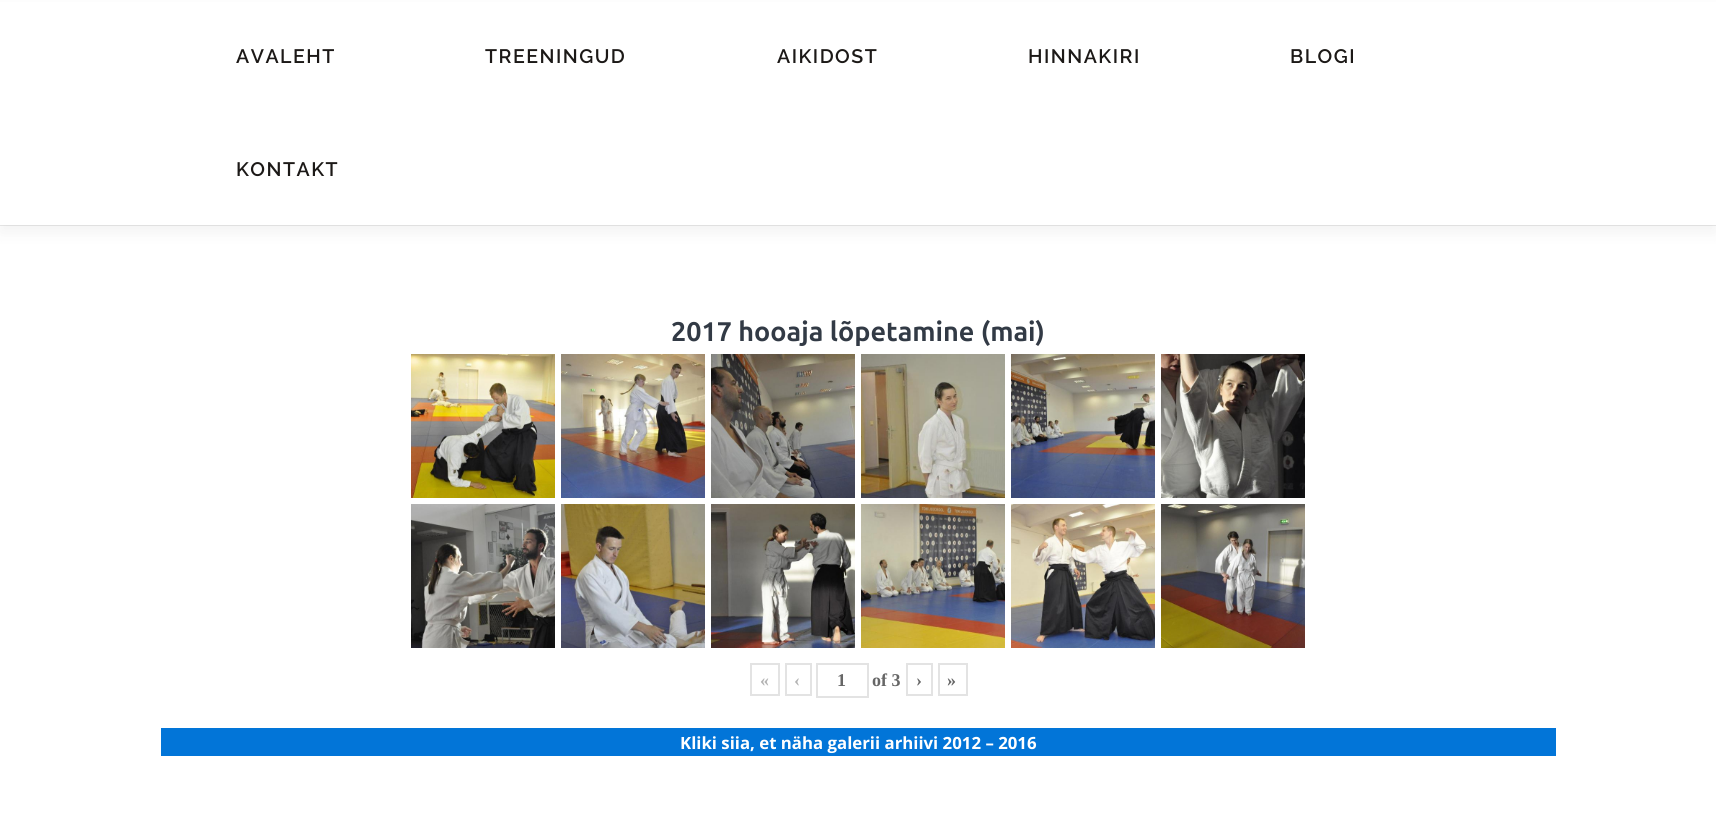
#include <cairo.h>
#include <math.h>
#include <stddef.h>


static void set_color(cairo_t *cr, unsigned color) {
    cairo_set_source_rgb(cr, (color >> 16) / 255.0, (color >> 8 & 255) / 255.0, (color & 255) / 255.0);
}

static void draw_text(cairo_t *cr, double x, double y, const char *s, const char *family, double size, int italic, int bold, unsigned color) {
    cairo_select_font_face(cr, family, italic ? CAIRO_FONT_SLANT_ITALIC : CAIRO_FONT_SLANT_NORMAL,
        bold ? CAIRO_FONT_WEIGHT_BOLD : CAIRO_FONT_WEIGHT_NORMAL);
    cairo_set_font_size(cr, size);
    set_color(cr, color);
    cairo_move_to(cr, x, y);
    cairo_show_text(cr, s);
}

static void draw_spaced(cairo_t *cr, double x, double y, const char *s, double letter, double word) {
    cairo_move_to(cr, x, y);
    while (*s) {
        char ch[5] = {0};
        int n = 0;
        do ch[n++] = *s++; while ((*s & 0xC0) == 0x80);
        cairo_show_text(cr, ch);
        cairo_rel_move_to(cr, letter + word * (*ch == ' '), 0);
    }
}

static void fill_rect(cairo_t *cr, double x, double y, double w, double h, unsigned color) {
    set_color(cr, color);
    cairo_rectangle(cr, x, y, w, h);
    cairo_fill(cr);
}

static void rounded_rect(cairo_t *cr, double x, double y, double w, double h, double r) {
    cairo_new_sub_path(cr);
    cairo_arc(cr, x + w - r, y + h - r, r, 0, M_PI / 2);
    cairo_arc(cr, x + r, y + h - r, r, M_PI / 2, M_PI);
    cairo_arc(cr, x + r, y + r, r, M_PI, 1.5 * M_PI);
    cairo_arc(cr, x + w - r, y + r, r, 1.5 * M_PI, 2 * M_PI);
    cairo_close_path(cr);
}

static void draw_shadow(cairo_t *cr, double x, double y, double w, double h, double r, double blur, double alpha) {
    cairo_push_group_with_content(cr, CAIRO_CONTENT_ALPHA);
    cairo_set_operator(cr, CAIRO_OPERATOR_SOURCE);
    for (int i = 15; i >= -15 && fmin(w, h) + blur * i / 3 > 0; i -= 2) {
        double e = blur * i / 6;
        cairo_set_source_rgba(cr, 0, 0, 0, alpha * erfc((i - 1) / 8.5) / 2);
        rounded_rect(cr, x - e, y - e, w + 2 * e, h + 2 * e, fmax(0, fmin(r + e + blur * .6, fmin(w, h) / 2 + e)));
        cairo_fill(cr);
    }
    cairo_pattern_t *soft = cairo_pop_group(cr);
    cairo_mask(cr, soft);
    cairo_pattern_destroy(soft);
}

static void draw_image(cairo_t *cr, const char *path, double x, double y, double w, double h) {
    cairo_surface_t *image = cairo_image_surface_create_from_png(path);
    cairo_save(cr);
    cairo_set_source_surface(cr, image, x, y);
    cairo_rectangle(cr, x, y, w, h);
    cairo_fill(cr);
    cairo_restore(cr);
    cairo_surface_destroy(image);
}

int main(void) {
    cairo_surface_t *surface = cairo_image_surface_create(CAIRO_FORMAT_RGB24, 1716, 840);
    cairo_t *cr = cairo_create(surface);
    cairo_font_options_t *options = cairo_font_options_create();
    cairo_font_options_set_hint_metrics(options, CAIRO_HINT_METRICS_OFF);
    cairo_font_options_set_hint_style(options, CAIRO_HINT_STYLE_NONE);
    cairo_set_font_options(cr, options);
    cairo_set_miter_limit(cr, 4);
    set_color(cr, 0xFFFFFF);
    cairo_paint(cr);
    fill_rect(cr, 0, 225, 1716, 1, 0xE9E9E9);
    set_color(cr, 0x323232);
    draw_shadow(cr, 0, 8, 1716, 225, 0, 7.5, 0.06);
    fill_rect(cr, 0, 2, 1716, 223, 0xFFFFFF);
    cairo_select_font_face(cr, "Raleway SemiBold", CAIRO_FONT_SLANT_NORMAL, CAIRO_FONT_WEIGHT_NORMAL);
    cairo_set_font_size(cr, 19.5);
    set_color(cr, 0x1C1917);
    draw_spaced(cr, 236, 63, "AVALEHT", 1.5, 0);
    draw_spaced(cr, 485, 63, "TREENINGUD", 1.5, 0);
    draw_spaced(cr, 777, 63, "AIKIDOST", 1.5, 0);
    draw_spaced(cr, 1028, 63, "HINNAKIRI", 1.5, 0);
    draw_spaced(cr, 1290, 63, "BLOGI", 1.5, 0);
    draw_spaced(cr, 236, 176, "KONTAKT", 1.5, 0);
    draw_text(cr, 671, 341, "2017 hooaja lõpetamine (mai)", "Ubuntu", 27, 0, 1, 0x323A45);
    draw_image(cr, "assets/img1.png", 411, 354, 144, 144);
    draw_image(cr, "assets/img2.png", 561, 354, 144, 144);
    draw_image(cr, "assets/img3.png", 711, 354, 144, 144);
    draw_image(cr, "assets/img4.png", 861, 354, 144, 144);
    draw_image(cr, "assets/img5.png", 1011, 354, 144, 144);
    draw_image(cr, "assets/img6.png", 1161, 354, 144, 144);
    draw_image(cr, "assets/img7.png", 411, 504, 144, 144);
    draw_image(cr, "assets/img8.png", 561, 504, 144, 144);
    draw_image(cr, "assets/img9.png", 711, 504, 144, 144);
    draw_image(cr, "assets/img10.png", 861, 504, 144, 144);
    draw_image(cr, "assets/img11.png", 1011, 504, 144, 144);
    draw_image(cr, "assets/img12.png", 1161, 504, 144, 144);
    cairo_rectangle(cr, 751, 664, 28, 31);
    set_color(cr, 0xE3E3E3);
    cairo_stroke(cr);
    draw_text(cr, 760, 686, "«", "Liberation Serif", 18, 0, 1, 0xB3B3B3);
    cairo_rectangle(cr, 786, 664, 25, 31);
    set_color(cr, 0xE3E3E3);
    cairo_stroke(cr);
    draw_text(cr, 794, 686, "‹", "Liberation Serif", 18, 0, 1, 0xB3B3B3);
    cairo_rectangle(cr, 817, 664, 51, 33);
    set_color(cr, 0xE3E3E3);
    cairo_stroke(cr);
    draw_text(cr, 837, 686, "1", "Liberation Serif", 18, 0, 1, 0x666666);
    draw_text(cr, 872, 686, "of 3", "Liberation Serif", 18, 0, 1, 0x666666);
    cairo_rectangle(cr, 907, 664, 25, 31);
    set_color(cr, 0xE3E3E3);
    cairo_stroke(cr);
    draw_text(cr, 916, 686, "›", "Liberation Serif", 18, 0, 1, 0x666666);
    cairo_rectangle(cr, 939, 664, 28, 31);
    set_color(cr, 0xE3E3E3);
    cairo_stroke(cr);
    draw_text(cr, 947, 686, "»", "Liberation Serif", 18, 0, 1, 0x666666);
    fill_rect(cr, 161, 728, 1395, 28, 0x0275D8);
    draw_text(cr, 680, 749, "Kliki siia, et näha galerii arhiivi 2012 – 2016", "Open Sans", 16.8, 0, 1, 0xFFFFFF);
    cairo_surface_write_to_png(surface, "output.png");
    cairo_font_options_destroy(options);
    cairo_destroy(cr);
    cairo_surface_destroy(surface);
    return 0;
}
